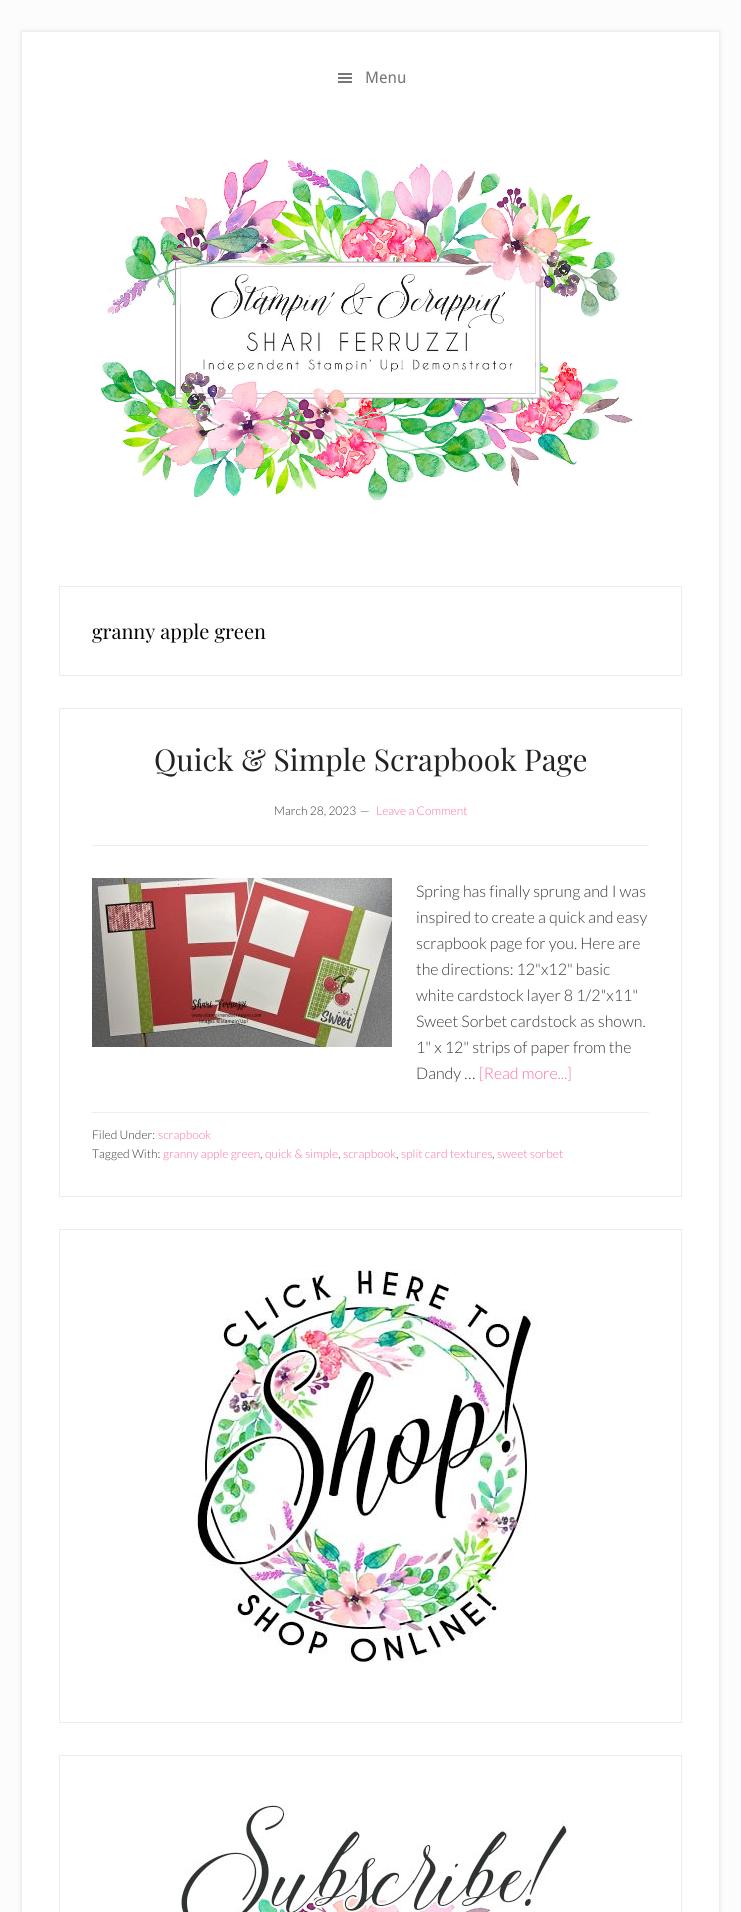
#include <cairo.h>
#include <math.h>
#include <stddef.h>


static void set_color(cairo_t *cr, unsigned color) {
    cairo_set_source_rgb(cr, (color >> 16) / 255.0, (color >> 8 & 255) / 255.0, (color & 255) / 255.0);
}

static void draw_text(cairo_t *cr, double x, double y, const char *s, const char *family, double size, int italic, int bold, unsigned color) {
    cairo_select_font_face(cr, family, italic ? CAIRO_FONT_SLANT_ITALIC : CAIRO_FONT_SLANT_NORMAL,
        bold ? CAIRO_FONT_WEIGHT_BOLD : CAIRO_FONT_WEIGHT_NORMAL);
    cairo_set_font_size(cr, size);
    set_color(cr, color);
    cairo_move_to(cr, x, y);
    cairo_show_text(cr, s);
}

static void fill_rect(cairo_t *cr, double x, double y, double w, double h, unsigned color) {
    set_color(cr, color);
    cairo_rectangle(cr, x, y, w, h);
    cairo_fill(cr);
}

static void rounded_rect(cairo_t *cr, double x, double y, double w, double h, double r) {
    cairo_new_sub_path(cr);
    cairo_arc(cr, x + w - r, y + h - r, r, 0, M_PI / 2);
    cairo_arc(cr, x + r, y + h - r, r, M_PI / 2, M_PI);
    cairo_arc(cr, x + r, y + r, r, M_PI, 1.5 * M_PI);
    cairo_arc(cr, x + w - r, y + r, r, 1.5 * M_PI, 2 * M_PI);
    cairo_close_path(cr);
}

static void draw_shadow(cairo_t *cr, double x, double y, double w, double h, double r, double blur, double alpha) {
    cairo_push_group_with_content(cr, CAIRO_CONTENT_ALPHA);
    cairo_set_operator(cr, CAIRO_OPERATOR_SOURCE);
    for (int i = 15; i >= -15 && fmin(w, h) + blur * i / 3 > 0; i -= 2) {
        double e = blur * i / 6;
        cairo_set_source_rgba(cr, 0, 0, 0, alpha * erfc((i - 1) / 8.5) / 2);
        rounded_rect(cr, x - e, y - e, w + 2 * e, h + 2 * e, fmax(0, fmin(r + e + blur * .6, fmin(w, h) / 2 + e)));
        cairo_fill(cr);
    }
    cairo_pattern_t *soft = cairo_pop_group(cr);
    cairo_mask(cr, soft);
    cairo_pattern_destroy(soft);
}

static void draw_image(cairo_t *cr, const char *path, double x, double y, double w, double h) {
    cairo_surface_t *image = cairo_image_surface_create_from_png(path);
    cairo_save(cr);
    cairo_set_source_surface(cr, image, x, y);
    cairo_rectangle(cr, x, y, w, h);
    cairo_fill(cr);
    cairo_restore(cr);
    cairo_surface_destroy(image);
}

int main(void) {
    cairo_surface_t *surface = cairo_image_surface_create(CAIRO_FORMAT_RGB24, 741, 1912);
    cairo_t *cr = cairo_create(surface);
    cairo_font_options_t *options = cairo_font_options_create();
    cairo_font_options_set_hint_metrics(options, CAIRO_HINT_METRICS_OFF);
    cairo_font_options_set_hint_style(options, CAIRO_HINT_STYLE_NONE);
    cairo_set_font_options(cr, options);
    cairo_set_miter_limit(cr, 4);
    set_color(cr, 0xFCFCFC);
    cairo_paint(cr);
    set_color(cr, 0xDDDDDD);
    draw_shadow(cr, 22, 32, 697, 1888, 0, 2.5, 1);
    fill_rect(cr, 22, 32, 697, 1880, 0xFFFFFF);
    draw_image(cr, "assets/img1.png", 338, 73, 14, 10);
    draw_text(cr, 365, 83, "Menu", "Droid Sans", 16, 0, 0, 0x767673);
    draw_image(cr, "assets/img2.png", 100, 157, 534, 346);
    cairo_rectangle(cr, 59.5, 586.5, 622, 89);
    set_color(cr, 0xEEEEE8);
    cairo_set_line_width(cr, 1);
    cairo_stroke(cr);
    draw_text(cr, 92, 639, "granny apple green", "Playfair Display", 20, 0, 0, 0x000000);
    cairo_rectangle(cr, 59.5, 708.5, 622, 488);
    set_color(cr, 0xEEEEE8);
    cairo_stroke(cr);
    fill_rect(cr, 92, 845, 557, 1, 0xEEEEE8);
    draw_text(cr, 154, 771, "Quick & Simple Scrapbook Page", "Playfair Display", 30, 0, 0, 0x222222);
    draw_text(cr, 274, 815, "March 28, 2023", "Lato Light", 12, 0, 0, 0x383838);
    draw_text(cr, 360, 815, "—", "Lato Light", 12, 0, 0, 0x383838);
    draw_text(cr, 376, 815, "Leave a Comment", "Lato Light", 12, 0, 0, 0xFF6CA2);
    draw_image(cr, "assets/img3.png", 92, 878, 300, 169);
    draw_text(cr, 416, 897, "Spring has finally sprung and I was", "Lato Light", 16, 0, 0, 0x383838);
    draw_text(cr, 416, 923, "inspired to create a quick and easy", "Lato Light", 16, 0, 0, 0x383838);
    draw_text(cr, 416, 949, "scrapbook page for you. Here are", "Lato Light", 16, 0, 0, 0x383838);
    draw_text(cr, 416, 975, "the directions: 12\"x12\" basic", "Lato Light", 16, 0, 0, 0x383838);
    draw_text(cr, 416, 1001, "white cardstock layer 8 1/2\"x11\"", "Lato Light", 16, 0, 0, 0x383838);
    draw_text(cr, 416, 1027, "Sweet Sorbet cardstock as shown.", "Lato Light", 16, 0, 0, 0x383838);
    draw_text(cr, 416, 1053, "1\" x 12\" strips of paper from the", "Lato Light", 16, 0, 0, 0x383838);
    draw_text(cr, 416, 1079, "Dandy …", "Lato Light", 16, 0, 0, 0x383838);
    draw_text(cr, 479, 1079, "[Read more...]", "Lato Light", 16, 0, 0, 0xFF6CA2);
    fill_rect(cr, 92, 1112, 557, 1, 0xEEEEE8);
    draw_text(cr, 92, 1139, "Filed Under:", "Lato Light", 12, 0, 0, 0x383838);
    draw_text(cr, 158, 1139, "scrapbook", "Lato Light", 12, 0, 0, 0xFF6CA2);
    draw_text(cr, 92, 1158, "Tagged With:", "Lato Light", 12, 0, 0, 0x383838);
    draw_text(cr, 163, 1158, "granny apple green", "Lato Light", 12, 0, 0, 0xFF6CA2);
    draw_text(cr, 260, 1158, ",", "Lato Light", 12, 0, 0, 0x383838);
    draw_text(cr, 265, 1158, "quick & simple", "Lato Light", 12, 0, 0, 0xFF6CA2);
    draw_text(cr, 338, 1158, ",", "Lato Light", 12, 0, 0, 0x383838);
    draw_text(cr, 343, 1158, "scrapbook", "Lato Light", 12, 0, 0, 0xFF6CA2);
    draw_text(cr, 396, 1158, ",", "Lato Light", 12, 0, 0, 0x383838);
    draw_text(cr, 401, 1158, "split card textures", "Lato Light", 12, 0, 0, 0xFF6CA2);
    draw_text(cr, 492, 1158, ",", "Lato Light", 12, 0, 0, 0x383838);
    draw_text(cr, 497, 1158, "sweet sorbet", "Lato Light", 12, 0, 0, 0xFF6CA2);
    cairo_rectangle(cr, 59.5, 1229.5, 622, 493);
    set_color(cr, 0xEEEEE8);
    cairo_stroke(cr);
    draw_image(cr, "assets/img4.png", 193, 1270, 344, 392);
    cairo_rectangle(cr, 59.5, 1755.5, 622, 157);
    cairo_stroke(cr);
    draw_image(cr, "assets/img5.png", 179, 1804, 390, 108);
    cairo_surface_write_to_png(surface, "output.png");
    cairo_font_options_destroy(options);
    cairo_destroy(cr);
    cairo_surface_destroy(surface);
    return 0;
}
